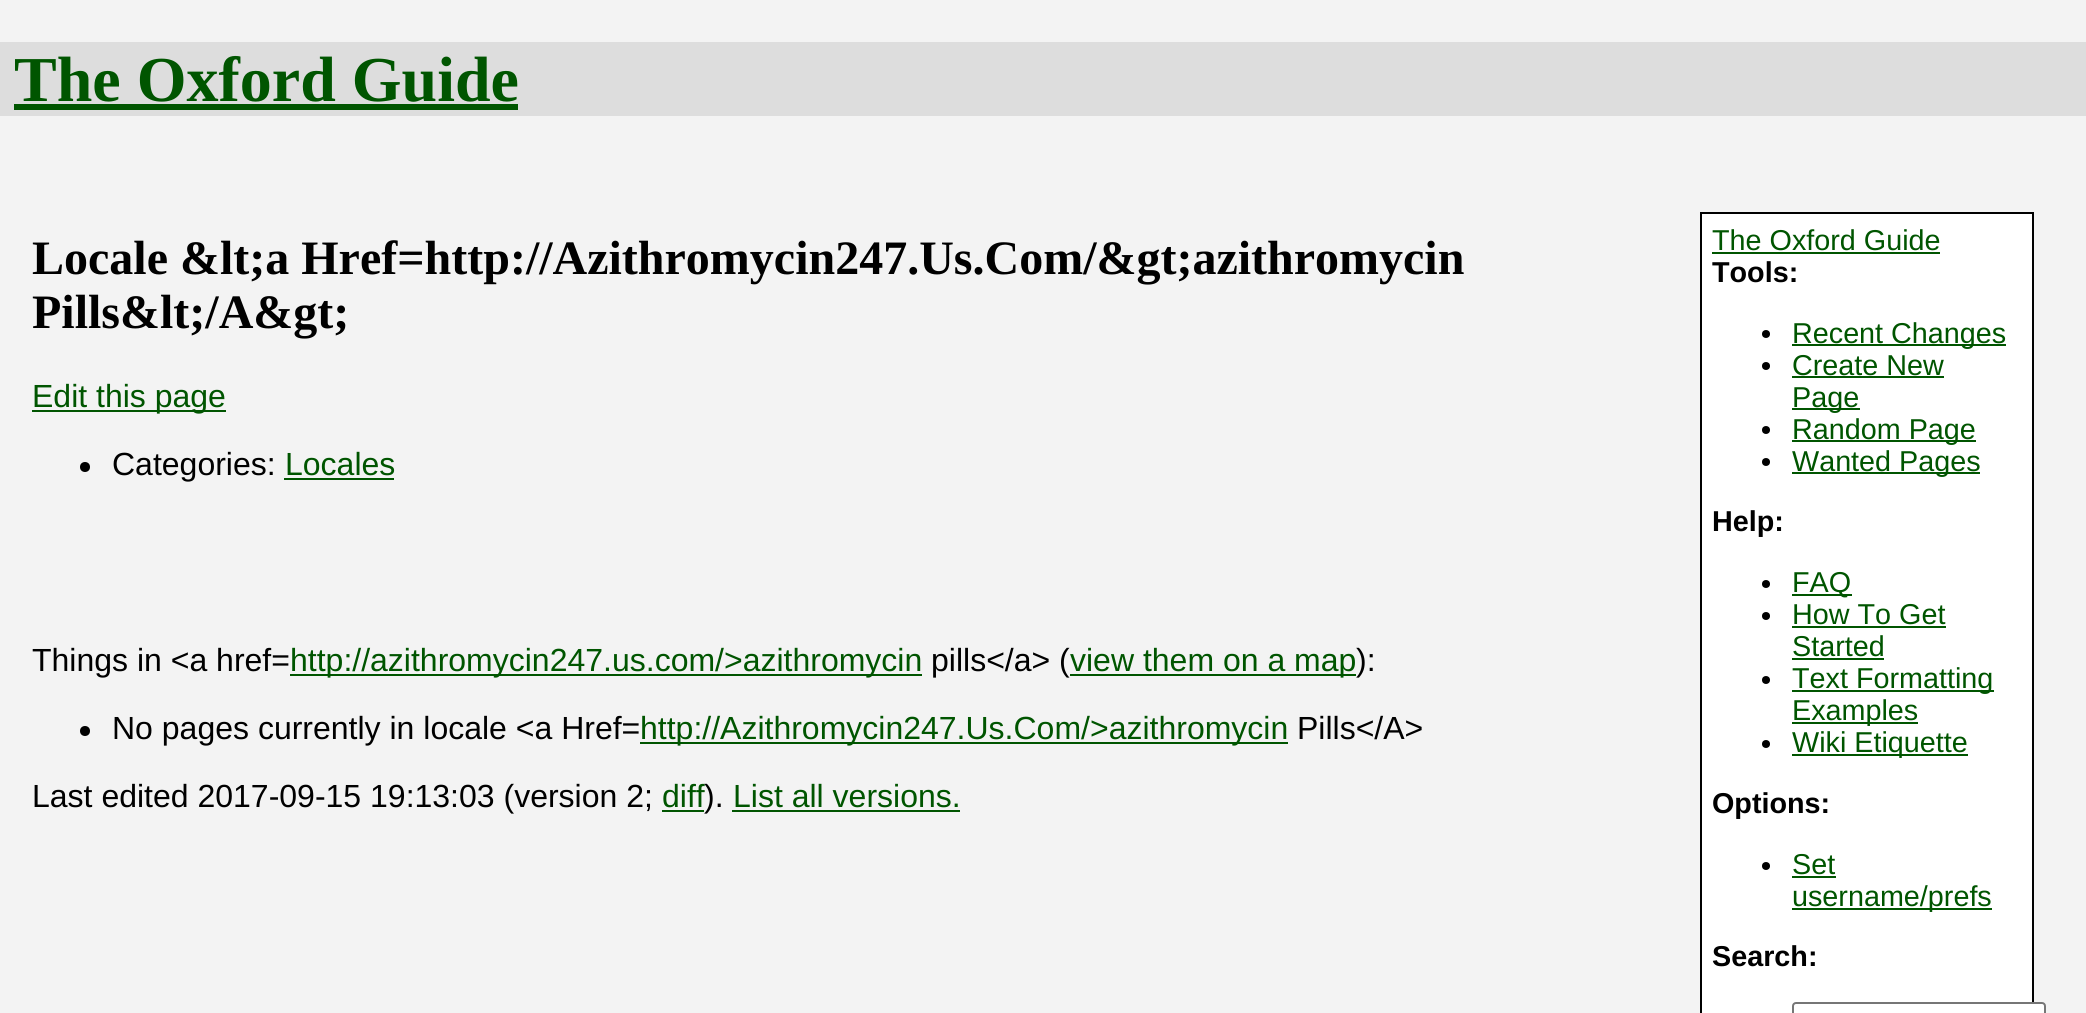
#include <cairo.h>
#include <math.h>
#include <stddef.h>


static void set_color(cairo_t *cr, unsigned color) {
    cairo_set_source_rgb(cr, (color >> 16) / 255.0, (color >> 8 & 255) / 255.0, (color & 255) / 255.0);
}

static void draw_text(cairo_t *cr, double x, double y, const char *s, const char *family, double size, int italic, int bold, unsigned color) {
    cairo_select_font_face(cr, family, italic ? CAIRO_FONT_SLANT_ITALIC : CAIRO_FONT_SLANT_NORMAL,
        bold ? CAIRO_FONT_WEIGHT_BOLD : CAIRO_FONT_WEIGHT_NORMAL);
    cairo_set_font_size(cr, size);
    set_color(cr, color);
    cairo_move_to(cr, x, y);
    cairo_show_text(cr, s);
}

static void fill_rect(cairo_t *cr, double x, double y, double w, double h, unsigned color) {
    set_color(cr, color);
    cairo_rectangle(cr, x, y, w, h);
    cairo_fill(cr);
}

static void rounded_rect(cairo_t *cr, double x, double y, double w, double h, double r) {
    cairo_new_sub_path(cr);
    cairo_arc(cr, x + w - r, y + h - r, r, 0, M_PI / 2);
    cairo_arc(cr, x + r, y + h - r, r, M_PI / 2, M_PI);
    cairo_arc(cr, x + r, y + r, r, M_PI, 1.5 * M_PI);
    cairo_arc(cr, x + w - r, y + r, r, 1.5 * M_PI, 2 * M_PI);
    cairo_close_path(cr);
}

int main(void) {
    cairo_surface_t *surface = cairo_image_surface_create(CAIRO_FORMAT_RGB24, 2086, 1013);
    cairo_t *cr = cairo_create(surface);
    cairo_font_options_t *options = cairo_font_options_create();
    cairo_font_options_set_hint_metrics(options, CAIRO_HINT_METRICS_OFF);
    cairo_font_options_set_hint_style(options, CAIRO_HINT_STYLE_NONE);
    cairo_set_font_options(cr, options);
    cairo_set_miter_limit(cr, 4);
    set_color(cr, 0xF3F3F3);
    cairo_paint(cr);
    fill_rect(cr, 0, 42, 2086, 74, 0xDDDDDD);
    draw_text(cr, 14, 101, "The Oxford Guide", "Liberation Serif", 64, 0, 1, 0x005500);
    fill_rect(cr, 14, 104, 504, 6, 0x005500);
    draw_text(cr, 32, 274, "Locale &lt;a Href=http://Azithromycin247.Us.Com/&gt;azithromycin", "Liberation Serif", 48, 0, 1, 0x000000);
    draw_text(cr, 32, 328, "Pills&lt;/A&gt;", "Liberation Serif", 48, 0, 1, 0x000000);
    fill_rect(cr, 32, 410, 194, 2, 0x005500);
    draw_text(cr, 32, 407, "Edit this page", "Liberation Sans", 32, 0, 0, 0x005500);
    set_color(cr, 0x000000);
    cairo_new_path(cr);
    cairo_arc(cr, 85, 467, 5, 0, 2 * M_PI);
    cairo_fill(cr);
    draw_text(cr, 112, 475, "Categories:", "Liberation Sans", 32, 0, 0, 0x000000);
    draw_text(cr, 285, 475, "Locales", "Liberation Sans", 32, 0, 0, 0x005500);
    fill_rect(cr, 284, 478, 110, 2, 0x005500);
    draw_text(cr, 32, 671, "Things in <a href=", "Liberation Sans", 32, 0, 0, 0x000000);
    fill_rect(cr, 290, 674, 632, 2, 0x005500);
    draw_text(cr, 290, 671, "http://azithromycin247.us.com/>azithromycin", "Liberation Sans", 32, 0, 0, 0x005500);
    draw_text(cr, 931, 671, "pills</a> (", "Liberation Sans", 32, 0, 0, 0x000000);
    fill_rect(cr, 1070, 674, 286, 2, 0x005500);
    draw_text(cr, 1070, 671, "view them on a map", "Liberation Sans", 32, 0, 0, 0x005500);
    draw_text(cr, 1356, 671, "):", "Liberation Sans", 32, 0, 0, 0x000000);
    cairo_new_path(cr);
    cairo_arc(cr, 85, 731, 5, 0, 2 * M_PI);
    cairo_fill(cr);
    draw_text(cr, 112, 739, "No pages currently in locale <a Href=", "Liberation Sans", 32, 0, 0, 0x000000);
    fill_rect(cr, 640, 742, 648, 2, 0x005500);
    draw_text(cr, 640, 739, "http://Azithromycin247.Us.Com/>azithromycin", "Liberation Sans", 32, 0, 0, 0x005500);
    draw_text(cr, 1297, 739, "Pills</A>", "Liberation Sans", 32, 0, 0, 0x000000);
    draw_text(cr, 32, 807, "Last edited 2017-09-15 19:13:03 (version 2;", "Liberation Sans", 32, 0, 0, 0x000000);
    draw_text(cr, 662, 807, "diff", "Liberation Sans", 32, 0, 0, 0x005500);
    fill_rect(cr, 662, 810, 42, 2, 0x005500);
    draw_text(cr, 704, 807, ").", "Liberation Sans", 32, 0, 0, 0x000000);
    draw_text(cr, 733, 807, "List all versions.", "Liberation Sans", 32, 0, 0, 0x005500);
    fill_rect(cr, 732, 810, 228, 2, 0x005500);
    set_color(cr, 0xFFFFFF);
    cairo_rectangle(cr, 1701, 213, 332, 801);
    cairo_fill_preserve(cr);
    set_color(cr, 0x000000);
    cairo_stroke(cr);
    draw_text(cr, 1712, 250, "The Oxford Guide", "Liberation Sans", 28.75, 0, 0, 0x005500);
    fill_rect(cr, 1712, 252, 228, 2, 0x005500);
    draw_text(cr, 1712, 282, "Tools:", "Liberation Sans", 28.75, 0, 1, 0x000000);
    cairo_new_path(cr);
    cairo_arc(cr, 1766, 334, 4, 0, 2 * M_PI);
    cairo_fill(cr);
    fill_rect(cr, 1792, 344, 214, 2, 0x005500);
    draw_text(cr, 1792, 343, "Recent Changes", "Liberation Sans", 28.75, 0, 0, 0x005500);
    set_color(cr, 0x000000);
    cairo_new_path(cr);
    cairo_arc(cr, 1766, 366, 4, 0, 2 * M_PI);
    cairo_fill(cr);
    draw_text(cr, 1792, 375, "Create New", "Liberation Sans", 28.75, 0, 0, 0x005500);
    fill_rect(cr, 1792, 376, 152, 2, 0x005500);
    fill_rect(cr, 1792, 408, 68, 2, 0x005500);
    draw_text(cr, 1792, 407, "Page", "Liberation Sans", 28.75, 0, 0, 0x005500);
    set_color(cr, 0x000000);
    cairo_new_path(cr);
    cairo_arc(cr, 1766, 430, 4, 0, 2 * M_PI);
    cairo_fill(cr);
    fill_rect(cr, 1792, 440, 184, 2, 0x005500);
    draw_text(cr, 1792, 439, "Random Page", "Liberation Sans", 28.75, 0, 0, 0x005500);
    set_color(cr, 0x000000);
    cairo_new_path(cr);
    cairo_arc(cr, 1766, 462, 4, 0, 2 * M_PI);
    cairo_fill(cr);
    fill_rect(cr, 1792, 472, 188, 2, 0x005500);
    draw_text(cr, 1792, 471, "Wanted Pages", "Liberation Sans", 28.75, 0, 0, 0x005500);
    draw_text(cr, 1712, 531, "Help:", "Liberation Sans", 28.75, 0, 1, 0x000000);
    cairo_new_path(cr);
    cairo_arc(cr, 1766, 584, 4, 0, 2 * M_PI);
    cairo_fill(cr);
    fill_rect(cr, 1792, 594, 60, 2, 0x005500);
    draw_text(cr, 1792, 592, "FAQ", "Liberation Sans", 28.75, 0, 0, 0x005500);
    set_color(cr, 0x000000);
    cairo_new_path(cr);
    cairo_arc(cr, 1766, 616, 4, 0, 2 * M_PI);
    cairo_fill(cr);
    draw_text(cr, 1792, 624, "How To Get", "Liberation Sans", 28.75, 0, 0, 0x005500);
    fill_rect(cr, 1792, 626, 154, 2, 0x005500);
    draw_text(cr, 1792, 656, "Started", "Liberation Sans", 28.75, 0, 0, 0x005500);
    fill_rect(cr, 1792, 658, 92, 2, 0x005500);
    set_color(cr, 0x000000);
    cairo_new_path(cr);
    cairo_arc(cr, 1766, 680, 4, 0, 2 * M_PI);
    cairo_fill(cr);
    fill_rect(cr, 1792, 690, 202, 2, 0x005500);
    draw_text(cr, 1792, 688, "Text Formatting", "Liberation Sans", 28.75, 0, 0, 0x005500);
    fill_rect(cr, 1792, 722, 126, 2, 0x005500);
    draw_text(cr, 1792, 720, "Examples", "Liberation Sans", 28.75, 0, 0, 0x005500);
    set_color(cr, 0x000000);
    cairo_new_path(cr);
    cairo_arc(cr, 1766, 744, 4, 0, 2 * M_PI);
    cairo_fill(cr);
    fill_rect(cr, 1792, 754, 176, 2, 0x005500);
    draw_text(cr, 1792, 752, "Wiki Etiquette", "Liberation Sans", 28.75, 0, 0, 0x005500);
    draw_text(cr, 1712, 813, "Options:", "Liberation Sans", 28.75, 0, 1, 0x000000);
    cairo_new_path(cr);
    cairo_arc(cr, 1766, 866, 4, 0, 2 * M_PI);
    cairo_fill(cr);
    draw_text(cr, 1792, 874, "Set", "Liberation Sans", 28.75, 0, 0, 0x005500);
    fill_rect(cr, 1792, 876, 44, 2, 0x005500);
    fill_rect(cr, 1792, 908, 200, 2, 0x005500);
    draw_text(cr, 1792, 906, "username/prefs", "Liberation Sans", 28.75, 0, 0, 0x005500);
    draw_text(cr, 1712, 966, "Search:", "Liberation Sans", 28.75, 0, 1, 0x000000);
    set_color(cr, 0xFFFFFF);
    rounded_rect(cr, 1793, 1003, 252, 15, 3);
    cairo_fill_preserve(cr);
    set_color(cr, 0x767676);
    cairo_stroke(cr);
    cairo_surface_write_to_png(surface, "output.png");
    cairo_font_options_destroy(options);
    cairo_destroy(cr);
    cairo_surface_destroy(surface);
    return 0;
}
